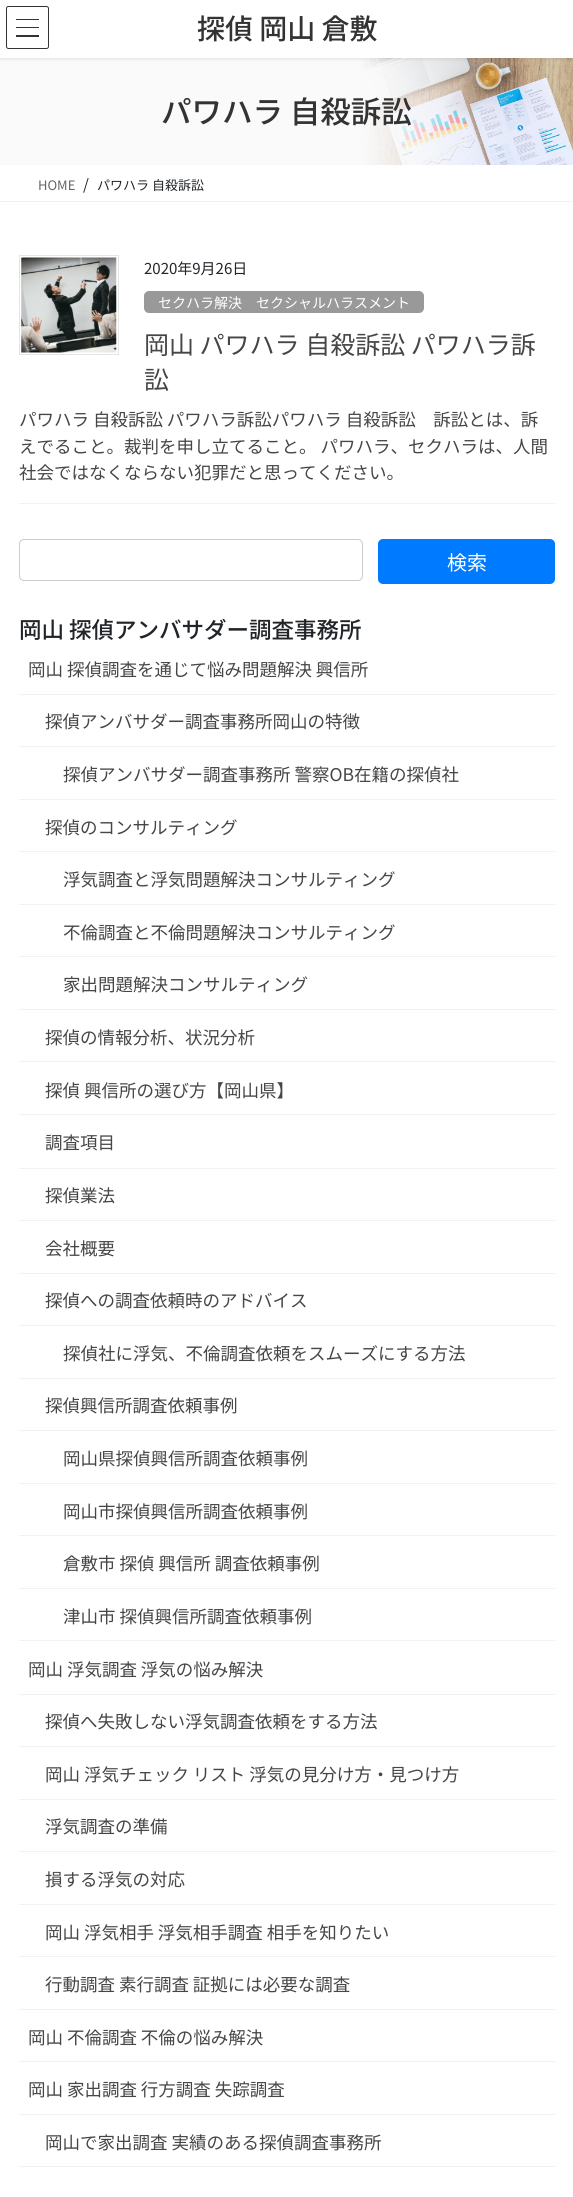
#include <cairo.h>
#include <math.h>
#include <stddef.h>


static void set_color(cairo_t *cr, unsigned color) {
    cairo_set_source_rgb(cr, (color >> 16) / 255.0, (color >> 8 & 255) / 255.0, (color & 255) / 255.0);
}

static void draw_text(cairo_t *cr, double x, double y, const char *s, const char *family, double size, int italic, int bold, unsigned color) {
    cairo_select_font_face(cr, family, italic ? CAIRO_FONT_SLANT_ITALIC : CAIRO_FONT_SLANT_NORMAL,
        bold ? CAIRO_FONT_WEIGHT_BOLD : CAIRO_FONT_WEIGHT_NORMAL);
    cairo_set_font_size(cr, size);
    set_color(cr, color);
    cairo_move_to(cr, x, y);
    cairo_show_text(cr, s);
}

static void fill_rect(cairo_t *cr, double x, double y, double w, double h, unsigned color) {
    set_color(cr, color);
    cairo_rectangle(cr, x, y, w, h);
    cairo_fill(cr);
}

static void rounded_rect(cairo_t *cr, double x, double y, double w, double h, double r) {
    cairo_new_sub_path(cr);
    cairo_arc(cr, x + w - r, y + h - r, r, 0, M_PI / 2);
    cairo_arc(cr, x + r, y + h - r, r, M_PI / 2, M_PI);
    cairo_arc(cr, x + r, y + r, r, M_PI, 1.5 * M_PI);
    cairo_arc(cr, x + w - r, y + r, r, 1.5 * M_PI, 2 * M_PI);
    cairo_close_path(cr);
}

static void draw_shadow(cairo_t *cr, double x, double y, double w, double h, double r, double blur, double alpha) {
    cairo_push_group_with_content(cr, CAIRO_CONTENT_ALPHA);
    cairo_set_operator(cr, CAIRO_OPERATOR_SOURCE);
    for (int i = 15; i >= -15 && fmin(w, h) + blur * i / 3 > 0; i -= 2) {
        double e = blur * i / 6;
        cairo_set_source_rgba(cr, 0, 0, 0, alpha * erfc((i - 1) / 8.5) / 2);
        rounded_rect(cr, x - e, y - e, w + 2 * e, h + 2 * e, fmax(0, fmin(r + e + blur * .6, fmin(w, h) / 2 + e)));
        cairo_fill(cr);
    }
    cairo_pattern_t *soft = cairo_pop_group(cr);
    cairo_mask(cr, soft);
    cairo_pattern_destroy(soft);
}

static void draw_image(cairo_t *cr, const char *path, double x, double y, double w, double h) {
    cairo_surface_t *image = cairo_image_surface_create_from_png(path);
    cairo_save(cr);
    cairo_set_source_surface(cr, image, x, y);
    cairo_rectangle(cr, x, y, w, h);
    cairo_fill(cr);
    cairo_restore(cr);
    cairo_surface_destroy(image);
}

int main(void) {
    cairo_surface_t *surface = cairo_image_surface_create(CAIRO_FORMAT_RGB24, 573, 2197);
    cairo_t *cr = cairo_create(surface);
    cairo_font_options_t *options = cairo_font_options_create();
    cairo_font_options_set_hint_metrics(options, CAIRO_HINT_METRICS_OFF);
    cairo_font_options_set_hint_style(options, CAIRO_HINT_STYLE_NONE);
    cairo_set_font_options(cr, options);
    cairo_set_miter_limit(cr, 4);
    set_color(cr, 0xFFFFFF);
    cairo_paint(cr);
    draw_image(cr, "assets/img1.png", 0, 58, 573, 107);
    set_color(cr, 0x000000);
    draw_shadow(cr, 0, 1, 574, 58, 0, 2, 0.1);
    fill_rect(cr, 0, 0, 573, 58, 0xFFFFFF);
    fill_rect(cr, 16, 19, 23, 1, 0x333333);
    fill_rect(cr, 16, 27, 23, 1, 0x333333);
    fill_rect(cr, 16, 35, 23, 2, 0x333333);
    rounded_rect(cr, 6.5, 6.5, 42, 42, 2);
    cairo_set_line_width(cr, 1);
    cairo_stroke(cr);
    draw_text(cr, 197, 39, "探偵 岡山 倉敷", "Noto Sans JP Medium", 28, 0, 0, 0x333333);
    draw_text(cr, 161, 123, "パワハラ 自殺訴訟", "Noto Sans JP Medium", 30.5, 0, 0, 0x333333);
    fill_rect(cr, 0, 201, 573, 1, 0xF2F2F2);
    draw_text(cr, 38, 190, "HOME", "Noto Sans JP", 13, 0, 0, 0x666666);
    draw_text(cr, 83, 190, "/", "Noto Sans JP", 15, 0, 0, 0x212529);
    draw_text(cr, 97, 190, "パワハラ 自殺訴訟", "Noto Sans JP", 13, 0, 0, 0x212529);
    fill_rect(cr, 19, 503, 536, 1, 0xF2F2F2);
    cairo_rectangle(cr, 19.5, 255.5, 99, 99);
    set_color(cr, 0xE5E5E5);
    cairo_stroke(cr);
    draw_image(cr, "assets/img2.png", 21, 257, 96, 96);
    draw_text(cr, 144, 274, "2020年9月26日", "Noto Sans JP", 15, 0, 0, 0x212529);
    set_color(cr, 0x999999);
    rounded_rect(cr, 144, 291, 280, 22, 5);
    cairo_fill(cr);
    draw_text(cr, 158, 308, "セクハラ解決　セクシャルハラスメント", "Noto Sans JP", 14, 0, 0, 0xFFFFFF);
    draw_text(cr, 144, 354, "岡山 パワハラ 自殺訴訟 パワハラ訴", "Noto Sans JP", 25, 0, 0, 0x464646);
    draw_text(cr, 144, 389, "訟", "Noto Sans JP", 25, 0, 0, 0x464646);
    draw_text(cr, 19, 426, "パワハラ 自殺訴訟 パワハラ訴訟パワハラ 自殺訴訟　訴訟とは、訴", "Noto Sans JP", 17.5, 0, 0, 0x464646);
    draw_text(cr, 19, 453, "えでること。裁判を申し立てること。 パワハラ、セクハラは、人間", "Noto Sans JP", 17.5, 0, 0, 0x464646);
    draw_text(cr, 19, 479, "社会ではなくならない犯罪だと思ってください。", "Noto Sans JP", 17.5, 0, 0, 0x464646);
    rounded_rect(cr, 19.5, 539.5, 343, 41, 4.5);
    set_color(cr, 0xCCCCCC);
    cairo_stroke(cr);
    set_color(cr, 0x007BFF);
    rounded_rect(cr, 378, 539, 177, 45, 5);
    cairo_fill(cr);
    draw_text(cr, 447, 570, "検索", "Noto Sans JP", 20, 0, 0, 0xFFFFFF);
    draw_text(cr, 19, 638, "岡山 探偵アンバサダー調査事務所", "Noto Sans JP Medium", 22.5, 0, 0, 0x212529);
    fill_rect(cr, 19, 694, 536, 1, 0xF2F2F2);
    draw_text(cr, 28, 676, "岡山 探偵調査を通じて悩み問題解決 興信所", "Noto Sans JP", 17.5, 0, 0, 0x464646);
    fill_rect(cr, 19, 746, 536, 1, 0xF2F2F2);
    draw_text(cr, 45, 728, "探偵アンバサダー調査事務所岡山の特徴", "Noto Sans JP", 17.5, 0, 0, 0x464646);
    fill_rect(cr, 19, 799, 536, 1, 0xF2F2F2);
    draw_text(cr, 63, 781, "探偵アンバサダー調査事務所 警察OB在籍の探偵社", "Noto Sans JP", 17.5, 0, 0, 0x464646);
    fill_rect(cr, 19, 851, 536, 1, 0xF2F2F2);
    draw_text(cr, 45, 834, "探偵のコンサルティング", "Noto Sans JP", 17.5, 0, 0, 0x464646);
    fill_rect(cr, 19, 904, 536, 1, 0xF2F2F2);
    draw_text(cr, 63, 886, "浮気調査と浮気問題解決コンサルティング", "Noto Sans JP", 17.5, 0, 0, 0x464646);
    fill_rect(cr, 19, 956, 536, 1, 0xF2F2F2);
    draw_text(cr, 63, 939, "不倫調査と不倫問題解決コンサルティング", "Noto Sans JP", 17.5, 0, 0, 0x464646);
    fill_rect(cr, 19, 1009, 536, 1, 0xF2F2F2);
    draw_text(cr, 63, 991, "家出問題解決コンサルティング", "Noto Sans JP", 17.5, 0, 0, 0x464646);
    fill_rect(cr, 19, 1061, 536, 1, 0xF2F2F2);
    draw_text(cr, 45, 1044, "探偵の情報分析、状況分析", "Noto Sans JP", 17.5, 0, 0, 0x464646);
    fill_rect(cr, 19, 1114, 536, 1, 0xF2F2F2);
    draw_text(cr, 45, 1097, "探偵 興信所の選び方【岡山県】", "Noto Sans JP", 17.5, 0, 0, 0x464646);
    fill_rect(cr, 19, 1168, 536, 1, 0xF2F2F2);
    draw_text(cr, 45, 1149, "調査項目", "Noto Sans JP", 17.5, 0, 0, 0x464646);
    fill_rect(cr, 19, 1220, 536, 1, 0xF2F2F2);
    draw_text(cr, 45, 1202, "探偵業法", "Noto Sans JP", 17.5, 0, 0, 0x464646);
    fill_rect(cr, 19, 1273, 536, 1, 0xF2F2F2);
    draw_text(cr, 45, 1255, "会社概要", "Noto Sans JP", 17.5, 0, 0, 0x464646);
    fill_rect(cr, 19, 1325, 536, 1, 0xF2F2F2);
    draw_text(cr, 45, 1307, "探偵への調査依頼時のアドバイス", "Noto Sans JP", 17.5, 0, 0, 0x464646);
    fill_rect(cr, 19, 1378, 536, 1, 0xF2F2F2);
    draw_text(cr, 63, 1360, "探偵社に浮気、不倫調査依頼をスムーズにする方法", "Noto Sans JP", 17.5, 0, 0, 0x464646);
    fill_rect(cr, 19, 1430, 536, 1, 0xF2F2F2);
    draw_text(cr, 45, 1412, "探偵興信所調査依頼事例", "Noto Sans JP", 17.5, 0, 0, 0x464646);
    fill_rect(cr, 19, 1483, 536, 1, 0xF2F2F2);
    draw_text(cr, 63, 1465, "岡山県探偵興信所調査依頼事例", "Noto Sans JP", 17.5, 0, 0, 0x464646);
    fill_rect(cr, 19, 1535, 536, 1, 0xF2F2F2);
    draw_text(cr, 63, 1518, "岡山市探偵興信所調査依頼事例", "Noto Sans JP", 17.5, 0, 0, 0x464646);
    fill_rect(cr, 19, 1588, 536, 1, 0xF2F2F2);
    draw_text(cr, 63, 1570, "倉敷市 探偵 興信所 調査依頼事例", "Noto Sans JP", 17.5, 0, 0, 0x464646);
    fill_rect(cr, 19, 1640, 536, 1, 0xF2F2F2);
    draw_text(cr, 63, 1623, "津山市 探偵興信所調査依頼事例", "Noto Sans JP", 17.5, 0, 0, 0x464646);
    fill_rect(cr, 19, 1694, 536, 1, 0xF2F2F2);
    draw_text(cr, 28, 1676, "岡山 浮気調査 浮気の悩み解決", "Noto Sans JP", 17.5, 0, 0, 0x464646);
    fill_rect(cr, 19, 1746, 536, 1, 0xF2F2F2);
    draw_text(cr, 45, 1728, "探偵へ失敗しない浮気調査依頼をする方法", "Noto Sans JP", 17.5, 0, 0, 0x464646);
    fill_rect(cr, 19, 1799, 536, 1, 0xF2F2F2);
    draw_text(cr, 45, 1781, "岡山 浮気チェック リスト 浮気の見分け方・見つけ方", "Noto Sans JP", 17.5, 0, 0, 0x464646);
    fill_rect(cr, 19, 1851, 536, 1, 0xF2F2F2);
    draw_text(cr, 45, 1833, "浮気調査の準備", "Noto Sans JP", 17.5, 0, 0, 0x464646);
    fill_rect(cr, 19, 1904, 536, 1, 0xF2F2F2);
    draw_text(cr, 45, 1886, "損する浮気の対応", "Noto Sans JP", 17.5, 0, 0, 0x464646);
    fill_rect(cr, 19, 1956, 536, 1, 0xF2F2F2);
    draw_text(cr, 45, 1939, "岡山 浮気相手 浮気相手調査 相手を知りたい", "Noto Sans JP", 17.5, 0, 0, 0x464646);
    fill_rect(cr, 19, 2009, 536, 1, 0xF2F2F2);
    draw_text(cr, 45, 1991, "行動調査 素行調査 証拠には必要な調査", "Noto Sans JP", 17.5, 0, 0, 0x464646);
    fill_rect(cr, 19, 2061, 536, 1, 0xF2F2F2);
    draw_text(cr, 28, 2044, "岡山 不倫調査 不倫の悩み解決", "Noto Sans JP", 17.5, 0, 0, 0x464646);
    fill_rect(cr, 19, 2114, 536, 1, 0xF2F2F2);
    draw_text(cr, 28, 2096, "岡山 家出調査 行方調査 失踪調査", "Noto Sans JP", 17.5, 0, 0, 0x464646);
    fill_rect(cr, 19, 2166, 536, 1, 0xF2F2F2);
    draw_text(cr, 45, 2149, "岡山で家出調査 実績のある探偵調査事務所", "Noto Sans JP", 17.5, 0, 0, 0x464646);
    cairo_surface_write_to_png(surface, "output.png");
    cairo_font_options_destroy(options);
    cairo_destroy(cr);
    cairo_surface_destroy(surface);
    return 0;
}
